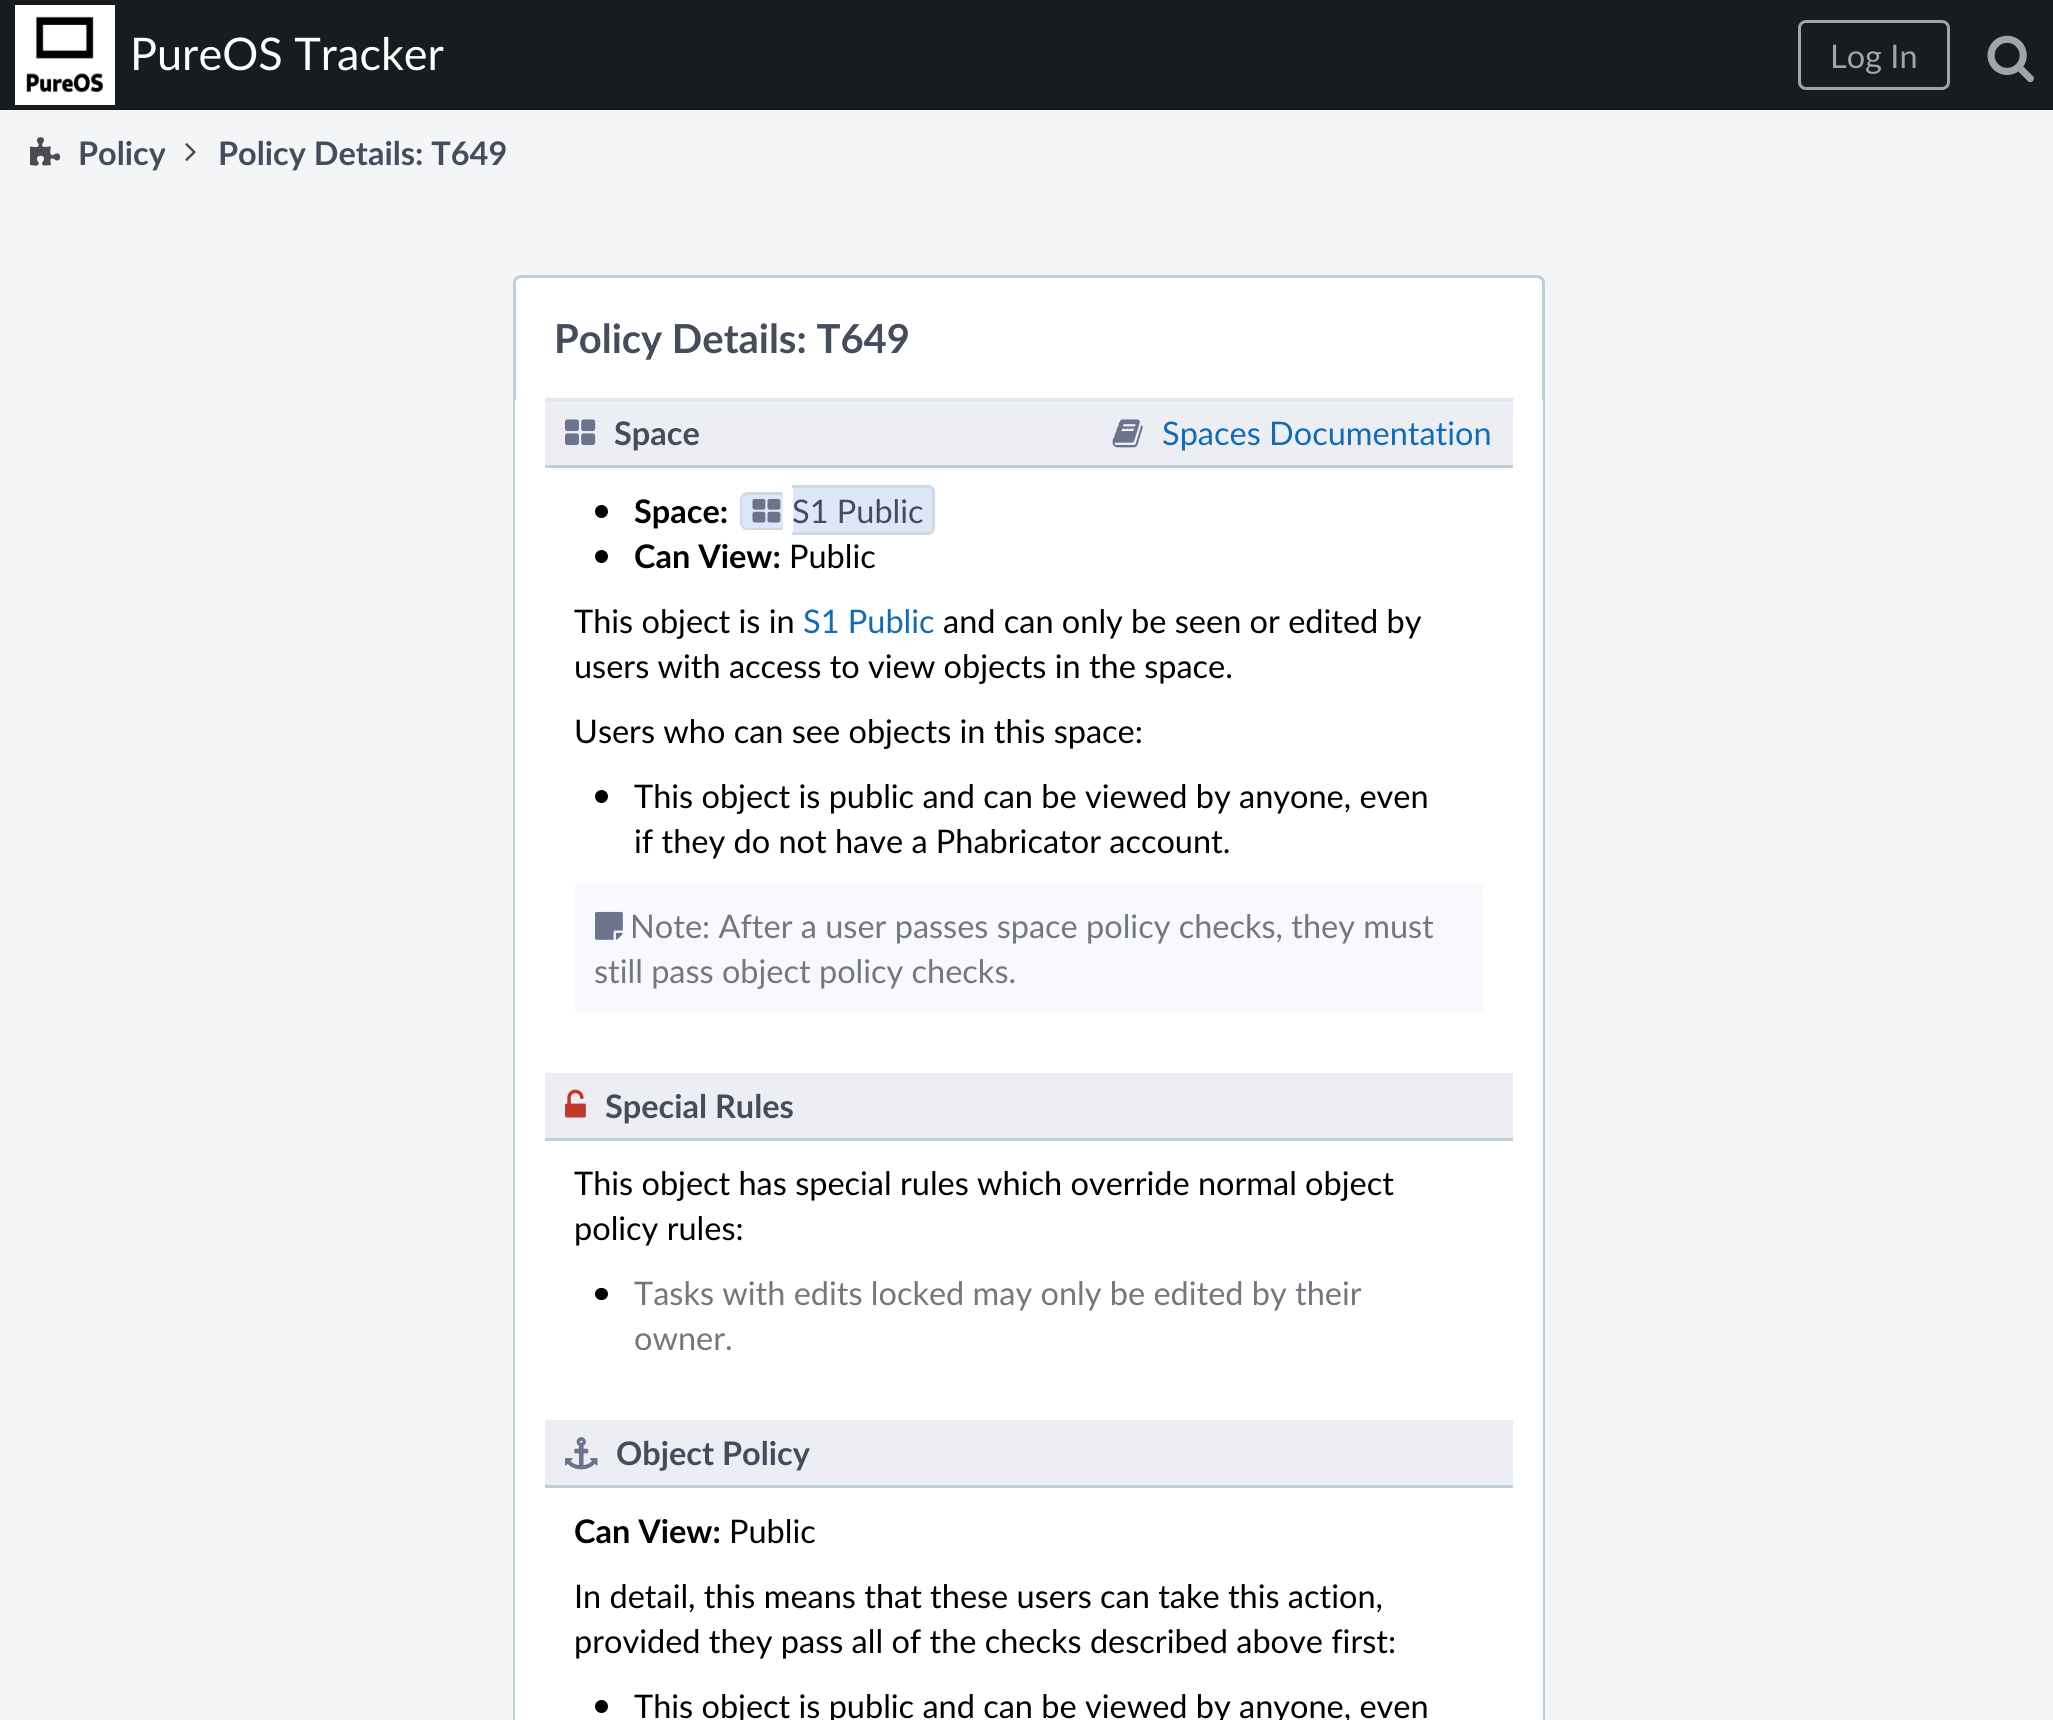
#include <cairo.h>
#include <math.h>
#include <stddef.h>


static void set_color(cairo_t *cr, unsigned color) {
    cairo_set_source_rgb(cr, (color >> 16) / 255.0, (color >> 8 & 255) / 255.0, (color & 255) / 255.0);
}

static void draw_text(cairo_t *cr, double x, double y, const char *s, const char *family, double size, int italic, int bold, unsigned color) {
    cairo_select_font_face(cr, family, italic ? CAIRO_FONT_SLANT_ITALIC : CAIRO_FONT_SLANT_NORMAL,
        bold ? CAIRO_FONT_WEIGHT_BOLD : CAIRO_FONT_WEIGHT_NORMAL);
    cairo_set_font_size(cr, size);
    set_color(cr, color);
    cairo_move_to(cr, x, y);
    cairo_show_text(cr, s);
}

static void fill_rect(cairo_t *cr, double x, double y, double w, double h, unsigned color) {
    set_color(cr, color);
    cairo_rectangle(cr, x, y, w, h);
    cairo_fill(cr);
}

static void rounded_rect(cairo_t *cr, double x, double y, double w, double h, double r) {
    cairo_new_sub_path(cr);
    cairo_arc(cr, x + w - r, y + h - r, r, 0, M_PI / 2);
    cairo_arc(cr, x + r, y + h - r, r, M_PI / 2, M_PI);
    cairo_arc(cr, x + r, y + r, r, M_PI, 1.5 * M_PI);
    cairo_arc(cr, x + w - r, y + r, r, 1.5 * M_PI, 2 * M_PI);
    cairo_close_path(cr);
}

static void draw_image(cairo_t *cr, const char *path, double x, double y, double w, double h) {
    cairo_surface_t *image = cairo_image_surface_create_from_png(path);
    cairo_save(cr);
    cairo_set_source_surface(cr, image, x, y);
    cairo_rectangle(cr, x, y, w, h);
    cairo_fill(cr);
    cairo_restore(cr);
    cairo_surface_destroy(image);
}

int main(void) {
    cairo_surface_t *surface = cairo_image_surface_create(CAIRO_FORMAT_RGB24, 2053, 1720);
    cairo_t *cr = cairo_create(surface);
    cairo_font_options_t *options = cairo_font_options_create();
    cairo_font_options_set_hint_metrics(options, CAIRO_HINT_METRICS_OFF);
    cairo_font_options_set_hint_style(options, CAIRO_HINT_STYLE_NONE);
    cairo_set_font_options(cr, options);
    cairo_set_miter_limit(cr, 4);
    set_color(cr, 0xF3F5F7);
    cairo_paint(cr);
    fill_rect(cr, 0, 0, 2053, 110, 0x171C20);
    draw_image(cr, "assets/img1.png", 15, 5, 100, 100);
    draw_text(cr, 130, 70, "PureOS Tracker", "Lato", 45, 0, 0, 0xFFFFFF);
    rounded_rect(cr, 1799.5, 21.5, 149, 67, 6.5);
    set_color(cr, 0xA2A4A6);
    cairo_set_line_width(cr, 3);
    cairo_stroke(cr);
    draw_text(cr, 1830, 68, "Log In", "Lato", 32.5, 0, 0, 0xA2A4A6);
    draw_image(cr, "assets/img2.png", 1987, 35, 47, 48);
    draw_image(cr, "assets/img3.png", 30, 137, 31, 29);
    cairo_save(cr);
    cairo_rectangle(cr, 20, 110, 145, 85);
    cairo_clip(cr);
    draw_text(cr, 78, 165, "Policy", "Lato", 32.5, 0, 1, 0x464C5C);
    cairo_restore(cr);
    draw_image(cr, "assets/img4.png", 185, 143, 11, 18);
    draw_text(cr, 218, 165, "Policy Details: T649", "Lato", 32.5, 0, 1, 0x464C5C);
    set_color(cr, 0xFFFFFF);
    rounded_rect(cr, 514.5, 276.5, 1029, 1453, 6.5);
    cairo_fill_preserve(cr);
    set_color(cr, 0xBFCFDA);
    cairo_stroke(cr);
    fill_rect(cr, 515, 400, 1028, 1320, 0xFFFFFF);
    fill_rect(cr, 545, 398, 968, 3, 0xDDE8EF);
    draw_text(cr, 554, 353, "Policy Details: T649", "Lato", 40, 0, 1, 0x464C5C);
    fill_rect(cr, 545, 401, 968, 64, 0xECEEF4);
    fill_rect(cr, 545, 465, 968, 3, 0xBFCFDA);
    draw_image(cr, "assets/img5.png", 565, 419, 31, 26);
    draw_text(cr, 614, 445, "Space", "Lato", 32.5, 0, 1, 0x464C5C);
    draw_image(cr, "assets/img6.png", 1112, 419, 31, 29);
    draw_text(cr, 1162, 445, "Spaces Documentation", "Lato", 32.5, 0, 0, 0x136CB2);
    set_color(cr, 0x000000);
    cairo_new_path(cr);
    cairo_arc(cr, 601.5, 511.5, 6.5, 0, 2 * M_PI);
    cairo_fill(cr);
    draw_text(cr, 634, 523, "Space:", "Lato", 32.5, 0, 1, 0x000000);
    set_color(cr, 0xDEE7F8);
    cairo_new_path(cr);
    cairo_move_to(cr, 748, 493);
    cairo_line_to(cr, 783, 493);
    cairo_line_to(cr, 783, 530);
    cairo_line_to(cr, 748, 530);
    cairo_curve_to(cr, 743.5, 530, 740, 526.5, 740, 522);
    cairo_line_to(cr, 740, 501);
    cairo_curve_to(cr, 740, 496.5, 743.5, 493, 748, 493);
    cairo_close_path(cr);
    cairo_fill(cr);
    set_color(cr, 0xCFDBE3);
    cairo_set_fill_rule(cr, CAIRO_FILL_RULE_EVEN_ODD);
    cairo_new_path(cr);
    cairo_move_to(cr, 748, 492);
    cairo_line_to(cr, 782, 492);
    cairo_line_to(cr, 782, 530);
    cairo_line_to(cr, 748, 530);
    cairo_curve_to(cr, 743, 530, 740, 527, 740, 522);
    cairo_line_to(cr, 740, 500);
    cairo_curve_to(cr, 740, 496, 743, 492, 748, 492);
    cairo_close_path(cr);
    cairo_move_to(cr, 748, 495);
    cairo_line_to(cr, 782, 495);
    cairo_line_to(cr, 782, 528);
    cairo_line_to(cr, 748, 528);
    cairo_curve_to(cr, 745, 528, 742, 525, 742, 522);
    cairo_line_to(cr, 742, 500);
    cairo_curve_to(cr, 742, 497, 745, 495, 748, 495);
    cairo_close_path(cr);
    cairo_fill(cr);
    set_color(cr, 0xDEE7F8);
    cairo_new_path(cr);
    cairo_move_to(cr, 793, 485);
    cairo_line_to(cr, 927, 485);
    cairo_curve_to(cr, 931.5, 485, 935, 488.5, 935, 493);
    cairo_line_to(cr, 935, 527);
    cairo_curve_to(cr, 935, 531.5, 931.5, 535, 927, 535);
    cairo_line_to(cr, 793, 535);
    cairo_close_path(cr);
    cairo_fill(cr);
    set_color(cr, 0xCFDBE3);
    cairo_new_path(cr);
    cairo_move_to(cr, 792, 485);
    cairo_line_to(cr, 928, 485);
    cairo_curve_to(cr, 932, 485, 935, 488, 935, 492);
    cairo_line_to(cr, 935, 528);
    cairo_curve_to(cr, 935, 532, 932, 535, 928, 535);
    cairo_line_to(cr, 792, 535);
    cairo_close_path(cr);
    cairo_move_to(cr, 792, 488);
    cairo_line_to(cr, 928, 488);
    cairo_curve_to(cr, 930, 488, 932, 490, 932, 492);
    cairo_line_to(cr, 932, 528);
    cairo_curve_to(cr, 932, 530, 930, 532, 928, 532);
    cairo_line_to(cr, 792, 532);
    cairo_close_path(cr);
    cairo_fill(cr);
    draw_image(cr, "assets/img7.png", 752, 498, 29, 25);
    draw_text(cr, 792, 523, "S1 Public", "Lato", 32.5, 0, 0, 0x464C5C);
    set_color(cr, 0x000000);
    cairo_new_path(cr);
    cairo_arc(cr, 601.5, 556.5, 6.5, 0, 2 * M_PI);
    cairo_fill(cr);
    draw_text(cr, 634, 568, "Can View:", "Lato", 32.5, 0, 1, 0x000000);
    draw_text(cr, 789, 568, "Public", "Lato", 32.5, 0, 0, 0x000000);
    draw_text(cr, 574, 633, "This object is in", "Lato", 32.5, 0, 0, 0x000000);
    draw_text(cr, 803, 633, "S1 Public", "Lato", 32.5, 0, 0, 0x136CB2);
    draw_text(cr, 943, 633, "and can only be seen or edited by", "Lato", 32.5, 0, 0, 0x000000);
    draw_text(cr, 574, 678, "users with access to view objects in the space.", "Lato", 32.5, 0, 0, 0x000000);
    draw_text(cr, 574, 743, "Users who can see objects in this space:", "Lato", 32.5, 0, 0, 0x000000);
    cairo_new_path(cr);
    cairo_arc(cr, 601.5, 796.5, 6.5, 0, 2 * M_PI);
    cairo_fill(cr);
    draw_text(cr, 634, 808, "This object is public and can be viewed by anyone, even", "Lato", 32.5, 0, 0, 0x000000);
    draw_text(cr, 634, 853, "if they do not have a Phabricator account.", "Lato", 32.5, 0, 0, 0x000000);
    fill_rect(cr, 575, 883, 908, 130, 0xF8F9FC);
    draw_image(cr, "assets/img8.png", 595, 911, 28, 29);
    draw_text(cr, 630, 938, "Note: After a user passes space policy checks, they must", "Lato", 32.5, 0, 0, 0x74777D);
    draw_text(cr, 594, 983, "still pass object policy checks.", "Lato", 32.5, 0, 0, 0x74777D);
    fill_rect(cr, 545, 1073, 968, 65, 0xECEEF4);
    fill_rect(cr, 545, 1138, 968, 3, 0xBFCFDA);
    draw_image(cr, "assets/img9.png", 565, 1089, 21, 29);
    draw_text(cr, 605, 1118, "Special Rules", "Lato", 32.5, 0, 1, 0x464C5C);
    draw_text(cr, 574, 1195, "This object has special rules which override normal object", "Lato", 32.5, 0, 0, 0x000000);
    draw_text(cr, 574, 1240, "policy rules:", "Lato", 32.5, 0, 0, 0x000000);
    rounded_rect(cr, 595, 1288, 13, 12, 6);
    cairo_fill(cr);
    draw_text(cr, 634, 1305, "Tasks with edits locked may only be edited by their", "Lato", 32.5, 0, 0, 0x74777D);
    draw_text(cr, 634, 1350, "owner.", "Lato", 32.5, 0, 0, 0x74777D);
    fill_rect(cr, 545, 1420, 968, 65, 0xECEEF4);
    fill_rect(cr, 545, 1485, 968, 3, 0xBFCFDA);
    draw_image(cr, "assets/img10.png", 565, 1437, 33, 33);
    draw_text(cr, 616, 1465, "Object Policy", "Lato", 32.5, 0, 1, 0x464C5C);
    draw_text(cr, 574, 1543, "Can View:", "Lato", 32.5, 0, 1, 0x000000);
    draw_text(cr, 729, 1543, "Public", "Lato", 32.5, 0, 0, 0x000000);
    draw_text(cr, 574, 1608, "In detail, this means that these users can take this action,", "Lato", 32.5, 0, 0, 0x000000);
    draw_text(cr, 574, 1653, "provided they pass all of the checks described above first:", "Lato", 32.5, 0, 0, 0x000000);
    cairo_new_path(cr);
    cairo_arc(cr, 601.5, 1706.5, 6.5, 0, 2 * M_PI);
    cairo_fill(cr);
    draw_text(cr, 634, 1718, "This object is public and can be viewed by anyone, even", "Lato", 32.5, 0, 0, 0x000000);
    cairo_surface_write_to_png(surface, "output.png");
    cairo_font_options_destroy(options);
    cairo_destroy(cr);
    cairo_surface_destroy(surface);
    return 0;
}
